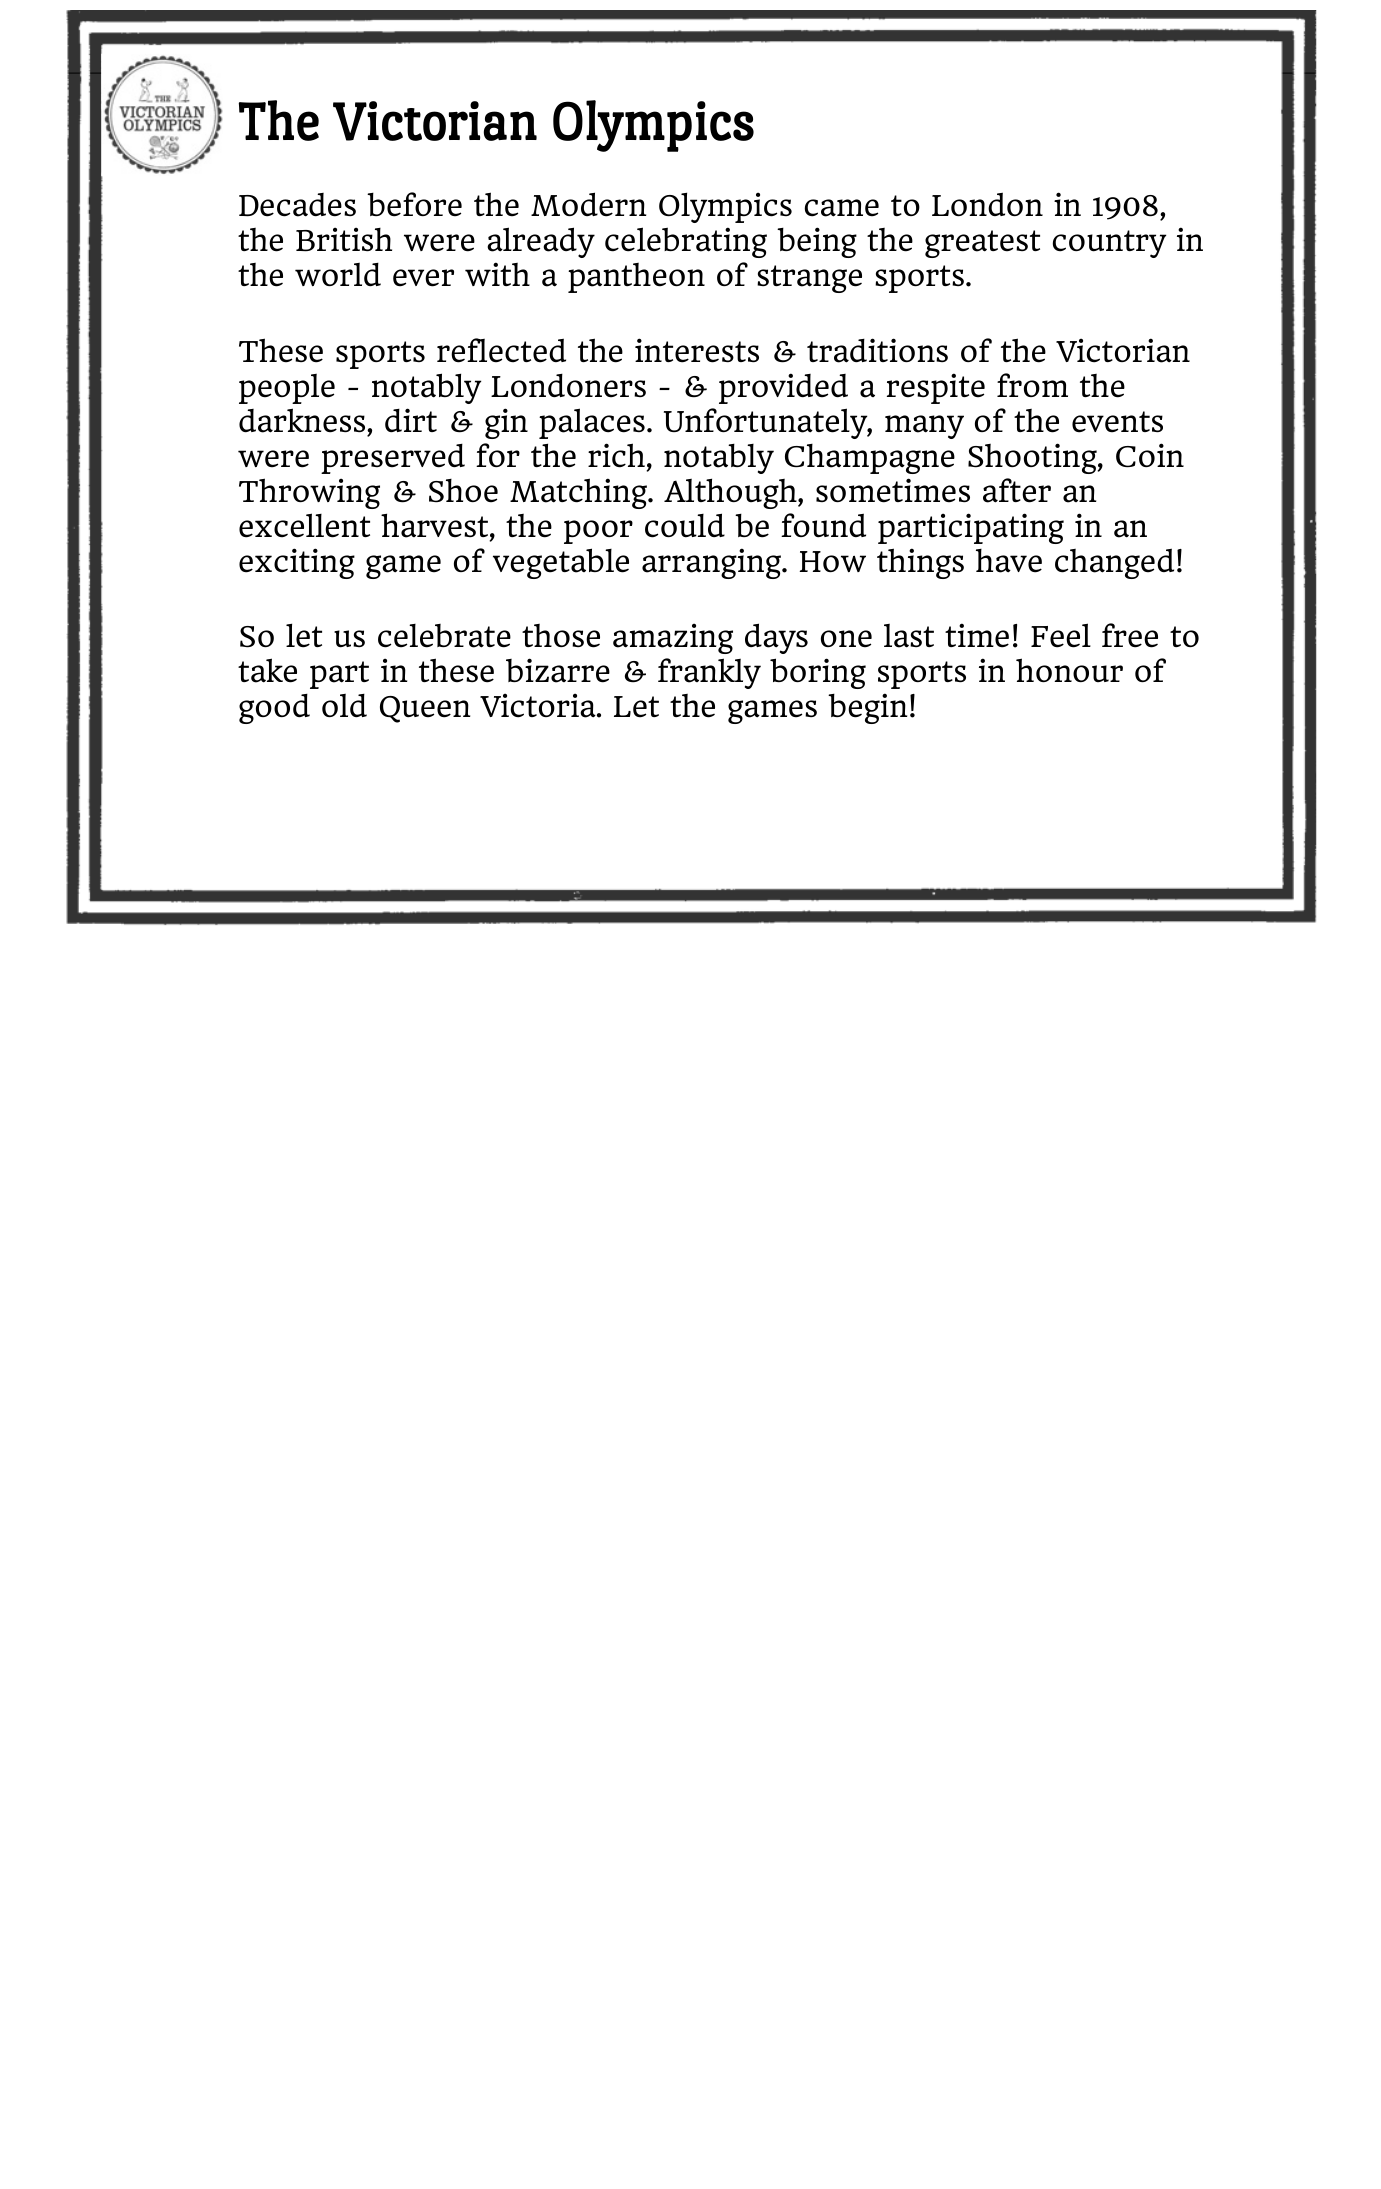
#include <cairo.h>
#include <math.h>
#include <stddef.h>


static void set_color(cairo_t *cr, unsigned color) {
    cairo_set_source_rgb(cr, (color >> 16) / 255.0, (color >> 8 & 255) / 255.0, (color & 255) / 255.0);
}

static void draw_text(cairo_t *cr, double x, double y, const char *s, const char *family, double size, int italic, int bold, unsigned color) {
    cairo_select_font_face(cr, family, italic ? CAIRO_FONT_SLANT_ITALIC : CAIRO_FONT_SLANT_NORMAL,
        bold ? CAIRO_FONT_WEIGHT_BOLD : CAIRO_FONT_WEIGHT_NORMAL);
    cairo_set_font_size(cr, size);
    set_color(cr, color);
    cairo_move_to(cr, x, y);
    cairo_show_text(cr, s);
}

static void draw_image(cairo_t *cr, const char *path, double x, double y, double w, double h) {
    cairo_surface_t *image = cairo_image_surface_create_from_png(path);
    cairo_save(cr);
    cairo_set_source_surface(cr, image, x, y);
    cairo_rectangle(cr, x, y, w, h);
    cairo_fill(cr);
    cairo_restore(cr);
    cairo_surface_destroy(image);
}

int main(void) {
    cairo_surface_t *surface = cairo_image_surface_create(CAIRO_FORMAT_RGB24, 1381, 2189);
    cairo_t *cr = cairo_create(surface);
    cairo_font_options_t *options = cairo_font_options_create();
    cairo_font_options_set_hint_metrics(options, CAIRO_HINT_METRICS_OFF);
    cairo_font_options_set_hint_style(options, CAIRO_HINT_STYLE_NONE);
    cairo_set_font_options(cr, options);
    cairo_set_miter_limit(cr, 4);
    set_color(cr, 0xFFFFFF);
    cairo_paint(cr);
    draw_image(cr, "assets/img1.png", 66, 10, 1251, 916);
    draw_image(cr, "assets/img2.png", 101, 53, 122, 124);
    draw_text(cr, 238, 140, "The Victorian Olympics", "Port Lligat Slab", 56, 0, 1, 0x000000);
    draw_text(cr, 238, 216, "Decades before the Modern Olympics came to London in 1908,", "HeadlandOne", 28, 0, 0, 0x000000);
    draw_text(cr, 238, 251, "the British were already celebrating being the greatest country in", "HeadlandOne", 28, 0, 0, 0x000000);
    draw_text(cr, 238, 286, "the world ever with a pantheon of strange sports.", "HeadlandOne", 28, 0, 0, 0x000000);
    draw_text(cr, 238, 362, "These sports reflected the interests & traditions of the Victorian", "HeadlandOne", 28, 0, 0, 0x000000);
    draw_text(cr, 238, 397, "people - notably Londoners - & provided a respite from the", "HeadlandOne", 28, 0, 0, 0x000000);
    draw_text(cr, 238, 432, "darkness, dirt & gin palaces. Unfortunately, many of the events", "HeadlandOne", 28, 0, 0, 0x000000);
    draw_text(cr, 238, 467, "were preserved for the rich, notably Champagne Shooting, Coin", "HeadlandOne", 28, 0, 0, 0x000000);
    draw_text(cr, 238, 502, "Throwing & Shoe Matching. Although, sometimes after an", "HeadlandOne", 28, 0, 0, 0x000000);
    draw_text(cr, 238, 537, "excellent harvest, the poor could be found participating in an", "HeadlandOne", 28, 0, 0, 0x000000);
    draw_text(cr, 238, 572, "exciting game of vegetable arranging. How things have changed!", "HeadlandOne", 28, 0, 0, 0x000000);
    draw_text(cr, 238, 647, "So let us celebrate those amazing days one last time! Feel free to", "HeadlandOne", 28, 0, 0, 0x000000);
    draw_text(cr, 238, 682, "take part in these bizarre & frankly boring sports in honour of", "HeadlandOne", 28, 0, 0, 0x000000);
    draw_text(cr, 238, 717, "good old Queen Victoria. Let the games begin!", "HeadlandOne", 28, 0, 0, 0x000000);
    cairo_surface_write_to_png(surface, "output.png");
    cairo_font_options_destroy(options);
    cairo_destroy(cr);
    cairo_surface_destroy(surface);
    return 0;
}
